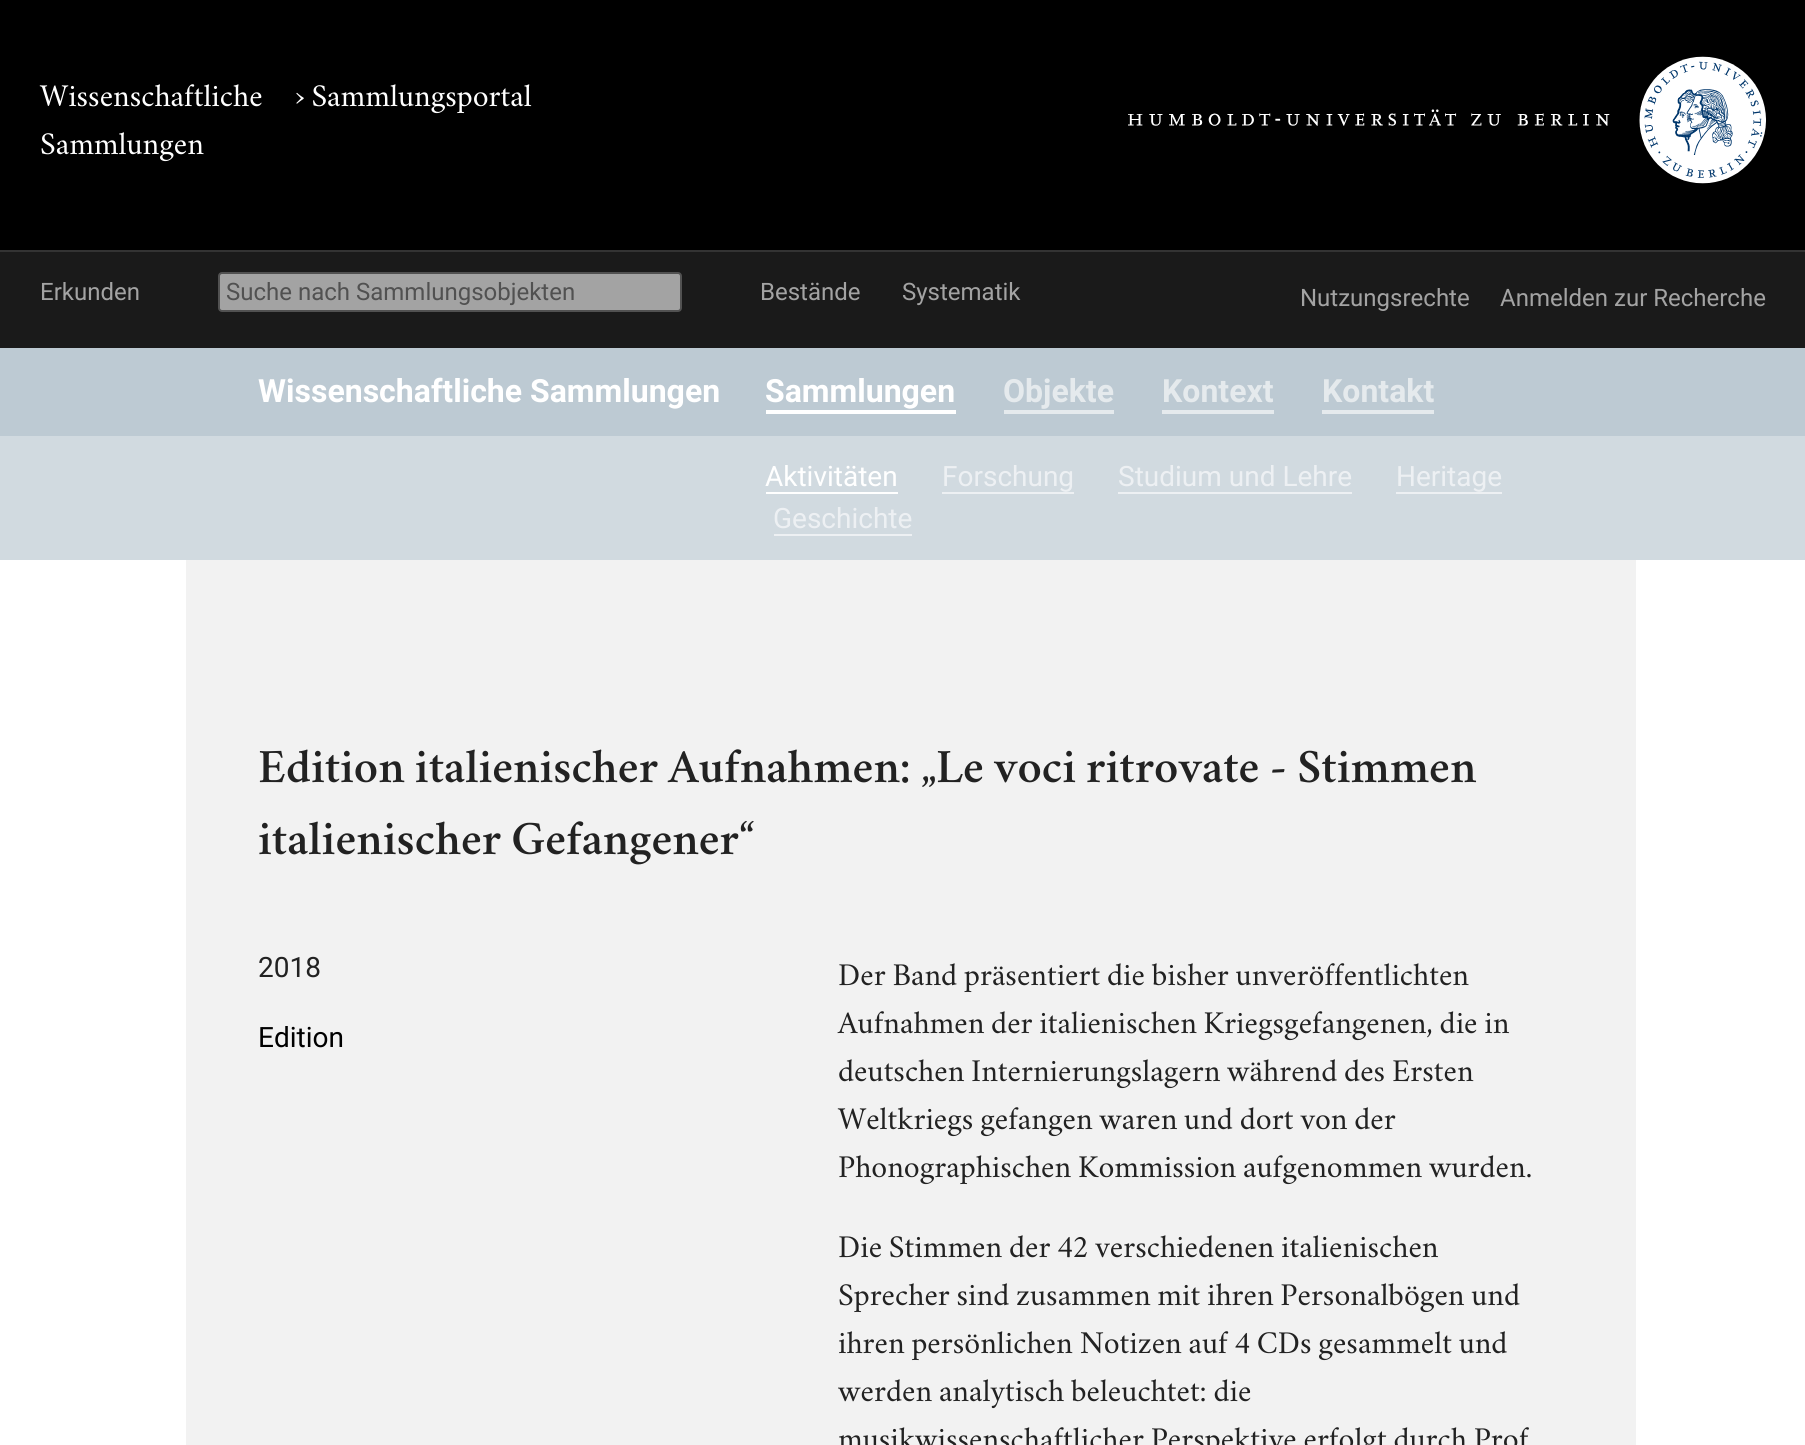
#include <cairo.h>
#include <math.h>
#include <stddef.h>


static void set_color(cairo_t *cr, unsigned color) {
    cairo_set_source_rgb(cr, (color >> 16) / 255.0, (color >> 8 & 255) / 255.0, (color & 255) / 255.0);
}

static void draw_text(cairo_t *cr, double x, double y, const char *s, const char *family, double size, int italic, int bold, unsigned color) {
    cairo_select_font_face(cr, family, italic ? CAIRO_FONT_SLANT_ITALIC : CAIRO_FONT_SLANT_NORMAL,
        bold ? CAIRO_FONT_WEIGHT_BOLD : CAIRO_FONT_WEIGHT_NORMAL);
    cairo_set_font_size(cr, size);
    set_color(cr, color);
    cairo_move_to(cr, x, y);
    cairo_show_text(cr, s);
}

static void fill_rect(cairo_t *cr, double x, double y, double w, double h, unsigned color) {
    set_color(cr, color);
    cairo_rectangle(cr, x, y, w, h);
    cairo_fill(cr);
}

static void rounded_rect(cairo_t *cr, double x, double y, double w, double h, double r) {
    cairo_new_sub_path(cr);
    cairo_arc(cr, x + w - r, y + h - r, r, 0, M_PI / 2);
    cairo_arc(cr, x + r, y + h - r, r, M_PI / 2, M_PI);
    cairo_arc(cr, x + r, y + r, r, M_PI, 1.5 * M_PI);
    cairo_arc(cr, x + w - r, y + r, r, 1.5 * M_PI, 2 * M_PI);
    cairo_close_path(cr);
}

static void draw_image(cairo_t *cr, const char *path, double x, double y, double w, double h) {
    cairo_surface_t *image = cairo_image_surface_create_from_png(path);
    cairo_save(cr);
    cairo_set_source_surface(cr, image, x, y);
    cairo_rectangle(cr, x, y, w, h);
    cairo_fill(cr);
    cairo_restore(cr);
    cairo_surface_destroy(image);
}

int main(void) {
    cairo_surface_t *surface = cairo_image_surface_create(CAIRO_FORMAT_RGB24, 1805, 1445);
    cairo_t *cr = cairo_create(surface);
    cairo_font_options_t *options = cairo_font_options_create();
    cairo_font_options_set_hint_metrics(options, CAIRO_HINT_METRICS_OFF);
    cairo_font_options_set_hint_style(options, CAIRO_HINT_STYLE_NONE);
    cairo_set_font_options(cr, options);
    cairo_set_miter_limit(cr, 4);
    set_color(cr, 0xFFFFFF);
    cairo_paint(cr);
    fill_rect(cr, 0, 0, 1805, 250, 0x000000);
    draw_text(cr, 40, 106, "Wissenschaftliche", "Crimson Text", 32, 0, 0, 0xFFFFFF);
    draw_text(cr, 40, 154, "Sammlungen", "Crimson Text", 32, 0, 0, 0xFFFFFF);
    draw_text(cr, 295, 106, "› Sammlungsportal", "Crimson Text", 32, 0, 0, 0xFFFFFF);
    draw_image(cr, "assets/img1.png", 1128, 56, 638, 128);
    fill_rect(cr, 0, 252, 1805, 96, 0x1A1A1A);
    fill_rect(cr, 0, 250, 1805, 2, 0x333333);
    draw_text(cr, 40, 300, "Erkunden", "Roboto", 24, 0, 0, 0xA3A3A3);
    rounded_rect(cr, 219, 273, 462, 38, 3);
    cairo_fill_preserve(cr);
    set_color(cr, 0x515151);
    cairo_stroke(cr);
    draw_text(cr, 226, 300, "Suche nach Sammlungsobjekten", "Roboto", 24, 0, 0, 0x515151);
    draw_text(cr, 760, 300, "Bestände", "Roboto", 24, 0, 0, 0xA3A3A3);
    draw_text(cr, 902, 300, "Systematik", "Roboto", 24, 0, 0, 0xA3A3A3);
    draw_text(cr, 1300, 306, "Nutzungsrechte", "Roboto", 24, 0, 0, 0xA3A3A3);
    draw_text(cr, 1500, 306, "Anmelden zur Recherche", "Roboto", 24, 0, 0, 0xA3A3A3);
    fill_rect(cr, 0, 348, 1805, 88, 0xBDCAD3);
    draw_text(cr, 258, 402, "Wissenschaftliche Sammlungen", "Roboto", 32, 0, 1, 0xFFFFFF);
    draw_text(cr, 765, 402, "Sammlungen", "Roboto", 32, 0, 1, 0xFFFFFF);
    fill_rect(cr, 766, 410, 190, 4, 0xFFFFFF);
    draw_text(cr, 1003, 402, "Objekte", "Roboto", 32, 0, 1, 0xE5EAED);
    fill_rect(cr, 1004, 410, 110, 4, 0xE5EAED);
    draw_text(cr, 1162, 402, "Kontext", "Roboto", 32, 0, 1, 0xE5EAED);
    fill_rect(cr, 1162, 410, 112, 4, 0xE5EAED);
    draw_text(cr, 1322, 402, "Kontakt", "Roboto", 32, 0, 1, 0xE5EAED);
    fill_rect(cr, 1322, 410, 112, 4, 0xE5EAED);
    fill_rect(cr, 0, 436, 1805, 124, 0xD1DAE0);
    draw_text(cr, 765, 486, "Aktivitäten", "Roboto", 28, 0, 0, 0xFFFFFF);
    fill_rect(cr, 766, 492, 132, 2, 0xFFFFFF);
    draw_text(cr, 942, 486, "Forschung", "Roboto", 28, 0, 0, 0xEDF0F3);
    fill_rect(cr, 942, 492, 132, 2, 0xEDF0F3);
    draw_text(cr, 1118, 486, "Studium und Lehre", "Roboto", 28, 0, 0, 0xEDF0F3);
    fill_rect(cr, 1118, 492, 234, 2, 0xEDF0F3);
    draw_text(cr, 1396, 486, "Heritage", "Roboto", 28, 0, 0, 0xEDF0F3);
    fill_rect(cr, 1396, 492, 106, 2, 0xEDF0F3);
    draw_text(cr, 773, 528, "Geschichte", "Roboto", 28, 0, 0, 0xEDF0F3);
    fill_rect(cr, 774, 534, 138, 2, 0xEDF0F3);
    fill_rect(cr, 186, 560, 1450, 885, 0xF2F2F2);
    draw_text(cr, 258, 782, "Edition italienischer Aufnahmen: „Le voci ritrovate - Stimmen", "Crimson Text SemiBold", 48, 0, 0, 0x222222);
    draw_text(cr, 258, 854, "italienischer Gefangener“", "Crimson Text SemiBold", 48, 0, 0, 0x222222);
    draw_text(cr, 258, 977, "2018", "Roboto", 28, 0, 0, 0x222222);
    draw_text(cr, 258, 1047, "Edition", "Roboto", 28, 0, 0, 0x000000);
    draw_text(cr, 838, 985, "Der Band präsentiert die bisher unveröffentlichten", "Crimson Text", 32, 0, 0, 0x222222);
    draw_text(cr, 838, 1033, "Aufnahmen der italienischen Kriegsgefangenen, die in", "Crimson Text", 32, 0, 0, 0x222222);
    draw_text(cr, 838, 1081, "deutschen Internierungslagern während des Ersten", "Crimson Text", 32, 0, 0, 0x222222);
    draw_text(cr, 838, 1129, "Weltkriegs gefangen waren und dort von der", "Crimson Text", 32, 0, 0, 0x222222);
    draw_text(cr, 838, 1177, "Phonographischen Kommission aufgenommen wurden.", "Crimson Text", 32, 0, 0, 0x222222);
    draw_text(cr, 838, 1257, "Die Stimmen der 42 verschiedenen italienischen", "Crimson Text", 32, 0, 0, 0x222222);
    draw_text(cr, 838, 1305, "Sprecher sind zusammen mit ihren Personalbögen und", "Crimson Text", 32, 0, 0, 0x222222);
    draw_text(cr, 838, 1353, "ihren persönlichen Notizen auf 4 CDs gesammelt und", "Crimson Text", 32, 0, 0, 0x222222);
    draw_text(cr, 838, 1401, "werden analytisch beleuchtet: die", "Crimson Text", 32, 0, 0, 0x222222);
    draw_text(cr, 838, 1449, "musikwissenschaftlicher Perspektive erfolgt durch Prof.", "Crimson Text", 32, 0, 0, 0x222222);
    cairo_surface_write_to_png(surface, "output.png");
    cairo_font_options_destroy(options);
    cairo_destroy(cr);
    cairo_surface_destroy(surface);
    return 0;
}
